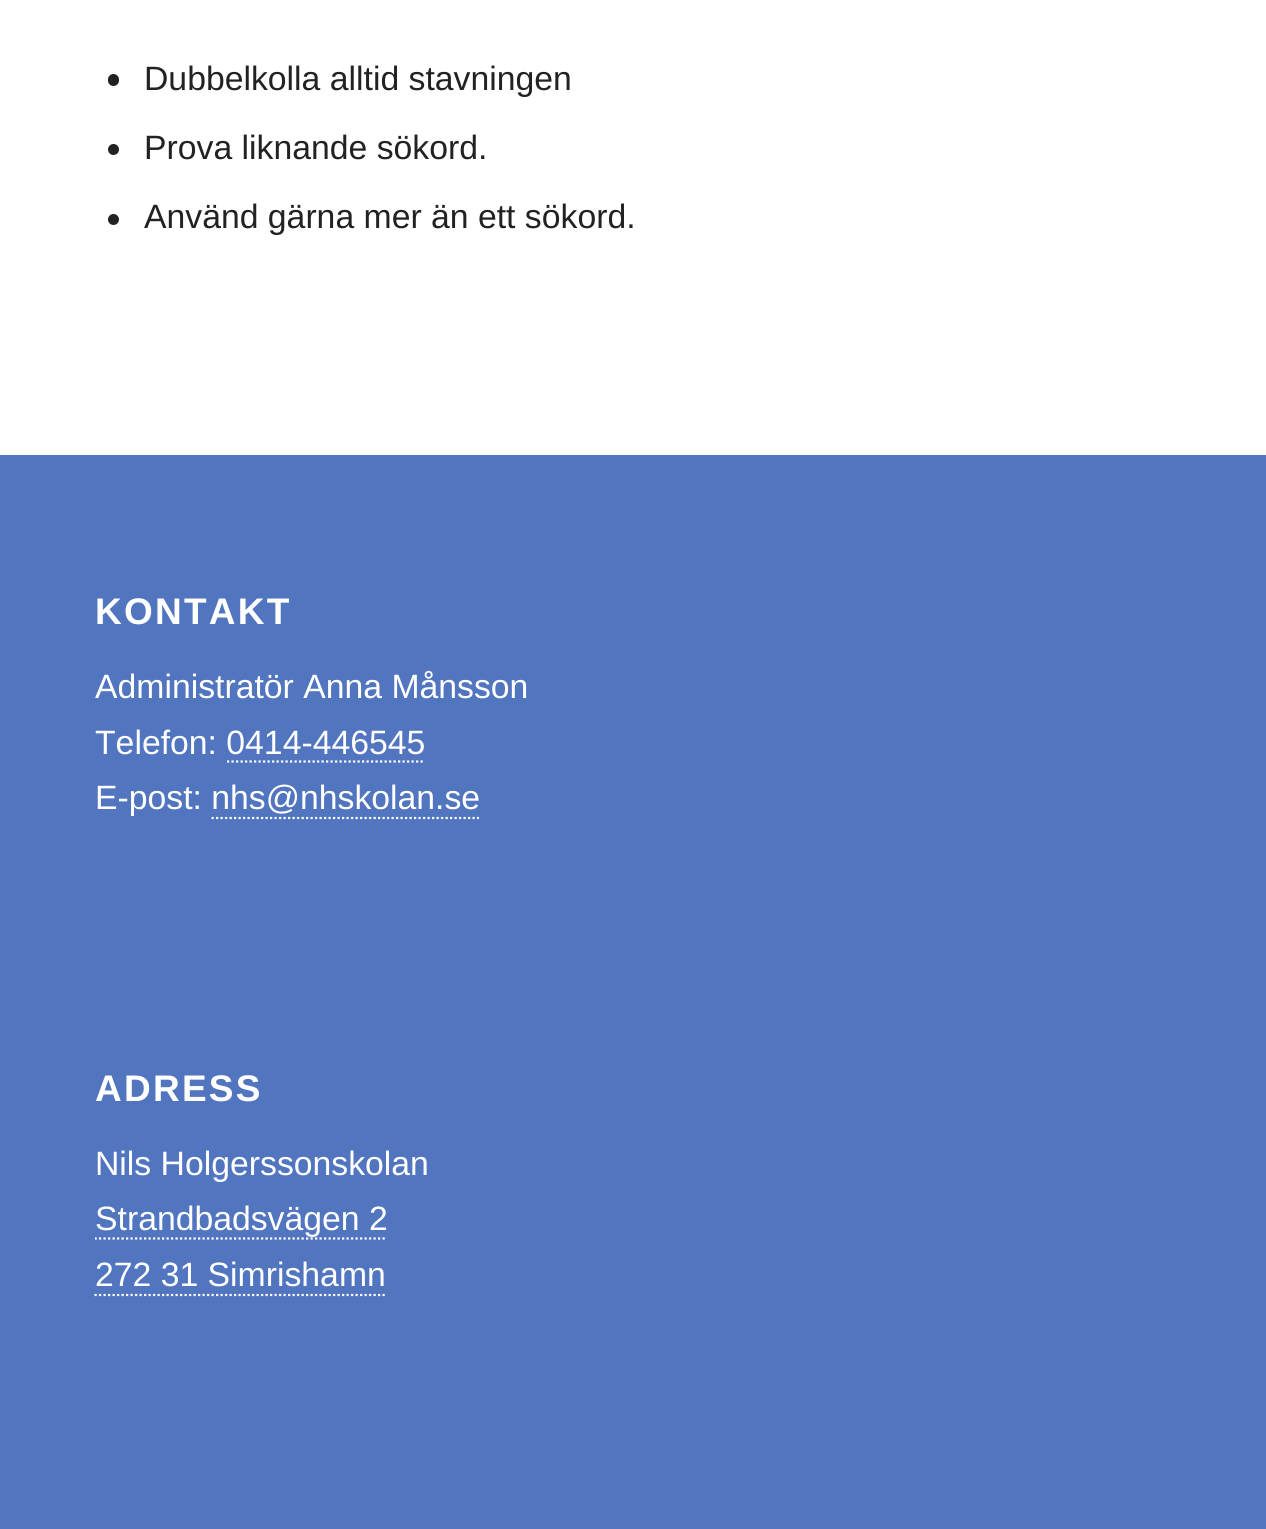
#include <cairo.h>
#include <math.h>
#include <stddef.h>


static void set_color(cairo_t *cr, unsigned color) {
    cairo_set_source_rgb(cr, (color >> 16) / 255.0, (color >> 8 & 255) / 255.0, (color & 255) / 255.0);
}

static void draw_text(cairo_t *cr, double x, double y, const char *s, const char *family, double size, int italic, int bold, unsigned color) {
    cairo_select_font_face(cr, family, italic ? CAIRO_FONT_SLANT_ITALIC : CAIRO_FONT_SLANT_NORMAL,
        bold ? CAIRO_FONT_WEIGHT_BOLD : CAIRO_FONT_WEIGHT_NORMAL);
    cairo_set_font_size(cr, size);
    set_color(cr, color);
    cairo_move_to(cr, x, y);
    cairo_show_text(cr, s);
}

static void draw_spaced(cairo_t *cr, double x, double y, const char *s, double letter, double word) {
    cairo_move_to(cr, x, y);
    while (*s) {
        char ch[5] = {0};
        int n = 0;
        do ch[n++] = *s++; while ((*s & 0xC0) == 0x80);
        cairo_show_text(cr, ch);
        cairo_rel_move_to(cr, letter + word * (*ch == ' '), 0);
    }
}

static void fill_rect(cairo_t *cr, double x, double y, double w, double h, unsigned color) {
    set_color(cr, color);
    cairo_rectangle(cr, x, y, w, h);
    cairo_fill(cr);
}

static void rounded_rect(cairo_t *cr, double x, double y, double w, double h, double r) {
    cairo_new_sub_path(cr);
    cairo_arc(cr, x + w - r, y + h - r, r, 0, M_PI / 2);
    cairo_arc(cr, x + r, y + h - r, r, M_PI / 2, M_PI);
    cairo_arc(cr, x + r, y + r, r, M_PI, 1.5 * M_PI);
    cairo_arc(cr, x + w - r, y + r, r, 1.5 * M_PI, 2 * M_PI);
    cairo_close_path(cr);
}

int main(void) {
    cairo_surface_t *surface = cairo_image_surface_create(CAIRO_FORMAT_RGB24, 1266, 1529);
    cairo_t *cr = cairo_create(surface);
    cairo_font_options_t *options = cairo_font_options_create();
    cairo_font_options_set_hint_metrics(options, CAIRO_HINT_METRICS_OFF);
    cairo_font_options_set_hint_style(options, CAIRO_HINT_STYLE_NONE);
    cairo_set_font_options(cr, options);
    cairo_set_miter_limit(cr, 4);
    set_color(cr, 0x5275C0);
    cairo_paint(cr);
    fill_rect(cr, 0, 0, 1266, 455, 0xFFFFFF);
    set_color(cr, 0x222222);
    rounded_rect(cr, 108, 74, 11, 12, 5.5);
    cairo_fill(cr);
    draw_text(cr, 144, 90, "Dubbelkolla alltid stavningen", "Liberation Sans", 33.75, 0, 0, 0x222222);
    cairo_new_path(cr);
    cairo_arc(cr, 113.5, 149.5, 5.5, 0, 2 * M_PI);
    cairo_fill(cr);
    draw_text(cr, 144, 159, "Prova liknande sökord.", "Liberation Sans", 33.75, 0, 0, 0x222222);
    cairo_new_path(cr);
    cairo_arc(cr, 113.5, 219.5, 5.5, 0, 2 * M_PI);
    cairo_fill(cr);
    draw_text(cr, 144, 228, "Använd gärna mer än ett sökord.", "Liberation Sans", 33.75, 0, 0, 0x222222);
    cairo_select_font_face(cr, "Liberation Sans", CAIRO_FONT_SLANT_NORMAL, CAIRO_FONT_WEIGHT_BOLD);
    cairo_set_font_size(cr, 37);
    set_color(cr, 0xFFFFFF);
    draw_spaced(cr, 95, 624, "KONTAKT", 2.25, 0);
    draw_text(cr, 95, 698, "Administratör Anna Månsson", "Liberation Sans", 33.75, 0, 0, 0xFFFFFF);
    draw_text(cr, 95, 754, "Telefon: 0414-446545", "Liberation Sans", 33.75, 0, 0, 0xFFFFFF);
    cairo_new_path(cr);
    cairo_move_to(cr, 227, 761.5);
    cairo_line_to(cr, 425, 761.5);
    cairo_set_line_width(cr, 2.2);
    cairo_set_dash(cr, (double[]){2.25, 2.25}, 2, 0);
    cairo_stroke(cr);
    draw_text(cr, 95, 809, "E-post: nhs@nhskolan.se", "Liberation Sans", 33.75, 0, 0, 0xFFFFFF);
    cairo_new_path(cr);
    cairo_move_to(cr, 211.5, 818);
    cairo_line_to(cr, 479, 818);
    cairo_stroke(cr);
    cairo_select_font_face(cr, "Liberation Sans", CAIRO_FONT_SLANT_NORMAL, CAIRO_FONT_WEIGHT_BOLD);
    cairo_set_font_size(cr, 37);
    draw_spaced(cr, 95, 1101, "ADRESS", 2.25, 0);
    draw_text(cr, 95, 1175, "Nils Holgerssonskolan", "Liberation Sans", 33.75, 0, 0, 0xFFFFFF);
    draw_text(cr, 95, 1230, "Strandbadsvägen 2", "Liberation Sans", 33.75, 0, 0, 0xFFFFFF);
    cairo_save(cr);
    cairo_rectangle(cr, 95, 1035, 1077, 297);
    cairo_clip(cr);
    cairo_new_path(cr);
    cairo_move_to(cr, 94.5, 1238.5);
    cairo_line_to(cr, 387, 1238.5);
    cairo_stroke(cr);
    cairo_restore(cr);
    draw_text(cr, 95, 1286, "272 31 Simrishamn", "Liberation Sans", 33.75, 0, 0, 0xFFFFFF);
    cairo_new_path(cr);
    cairo_move_to(cr, 94.5, 1295);
    cairo_line_to(cr, 385, 1295);
    cairo_stroke(cr);
    cairo_surface_write_to_png(surface, "output.png");
    cairo_font_options_destroy(options);
    cairo_destroy(cr);
    cairo_surface_destroy(surface);
    return 0;
}
